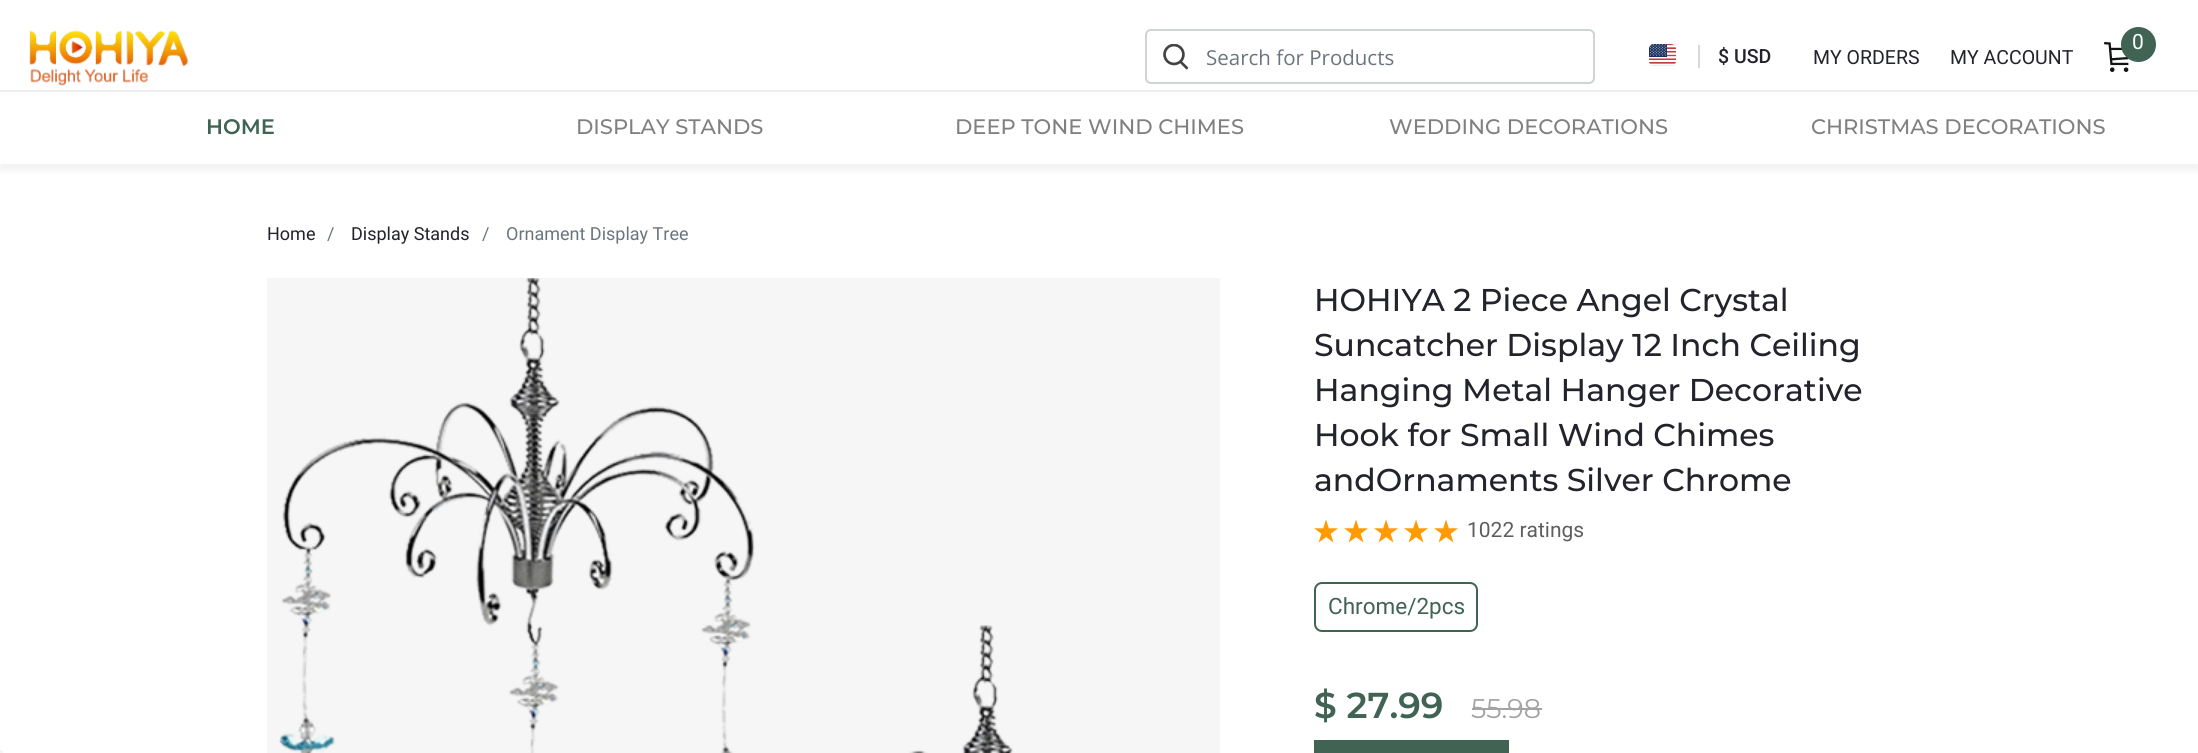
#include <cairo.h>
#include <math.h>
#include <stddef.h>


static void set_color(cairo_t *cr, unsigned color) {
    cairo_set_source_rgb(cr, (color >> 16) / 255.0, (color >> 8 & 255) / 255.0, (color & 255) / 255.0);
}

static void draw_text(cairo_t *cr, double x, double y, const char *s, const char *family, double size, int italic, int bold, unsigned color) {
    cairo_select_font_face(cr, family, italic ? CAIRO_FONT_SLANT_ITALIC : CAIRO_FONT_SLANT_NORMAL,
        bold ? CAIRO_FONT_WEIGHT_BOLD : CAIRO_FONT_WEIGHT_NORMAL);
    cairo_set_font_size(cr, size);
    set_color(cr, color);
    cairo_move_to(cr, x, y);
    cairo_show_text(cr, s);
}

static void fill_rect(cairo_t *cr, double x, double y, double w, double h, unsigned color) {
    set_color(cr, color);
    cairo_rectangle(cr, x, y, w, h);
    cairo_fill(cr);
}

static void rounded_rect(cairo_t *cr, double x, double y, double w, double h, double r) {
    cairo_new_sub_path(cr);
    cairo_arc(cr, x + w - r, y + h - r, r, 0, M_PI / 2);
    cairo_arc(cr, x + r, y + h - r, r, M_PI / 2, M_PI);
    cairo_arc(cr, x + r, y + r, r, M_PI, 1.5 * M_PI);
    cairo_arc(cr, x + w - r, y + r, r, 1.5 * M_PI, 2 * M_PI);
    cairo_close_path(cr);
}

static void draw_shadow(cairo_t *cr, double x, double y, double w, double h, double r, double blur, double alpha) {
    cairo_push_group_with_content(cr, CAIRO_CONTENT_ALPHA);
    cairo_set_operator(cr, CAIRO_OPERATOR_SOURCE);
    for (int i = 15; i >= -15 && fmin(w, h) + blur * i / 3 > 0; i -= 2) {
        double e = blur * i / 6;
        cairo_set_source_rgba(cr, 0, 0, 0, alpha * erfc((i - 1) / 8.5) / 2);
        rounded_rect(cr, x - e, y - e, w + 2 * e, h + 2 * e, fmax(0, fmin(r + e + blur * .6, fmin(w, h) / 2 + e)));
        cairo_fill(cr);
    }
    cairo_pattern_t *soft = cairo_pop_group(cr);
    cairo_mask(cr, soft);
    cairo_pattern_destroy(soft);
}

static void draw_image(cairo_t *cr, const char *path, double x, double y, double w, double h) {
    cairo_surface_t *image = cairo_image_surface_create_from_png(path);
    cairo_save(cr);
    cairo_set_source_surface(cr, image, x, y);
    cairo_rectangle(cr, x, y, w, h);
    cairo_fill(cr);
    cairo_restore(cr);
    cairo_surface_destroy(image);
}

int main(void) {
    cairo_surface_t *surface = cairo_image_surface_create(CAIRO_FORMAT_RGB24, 2198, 753);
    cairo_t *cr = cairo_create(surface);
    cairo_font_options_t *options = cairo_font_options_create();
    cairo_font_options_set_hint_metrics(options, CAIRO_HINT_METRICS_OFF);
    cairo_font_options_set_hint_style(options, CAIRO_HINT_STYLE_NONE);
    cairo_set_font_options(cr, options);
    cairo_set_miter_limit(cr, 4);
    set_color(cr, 0xFFFFFF);
    cairo_paint(cr);
    draw_image(cr, "assets/img1.png", 29, 30, 160, 56);
    draw_image(cr, "assets/img2.png", 2104, 42, 25, 30);
    set_color(cr, 0x406354);
    cairo_arc(cr, 2138.5, 44.5, 17.5, 0, 2 * M_PI);
    cairo_fill(cr);
    draw_text(cr, 2132, 49, "0", "Roboto", 21, 0, 0, 0xFFFFFF);
    rounded_rect(cr, 1146, 30, 448, 53, 5);
    set_color(cr, 0xCED4DA);
    cairo_stroke(cr);
    draw_image(cr, "assets/img3.png", 1163, 44, 25, 26);
    draw_text(cr, 1206, 65, "Search for Products", "Open Sans", 20.5, 0, 0, 0x6C757D);
    draw_image(cr, "assets/img4.png", 1649, 44, 27, 22);
    draw_text(cr, 1718, 63, "$ USD", "Roboto Medium", 19.5, 0, 0, 0x22232B);
    fill_rect(cr, 1698, 45, 2, 23, 0xD8D8D8);
    draw_text(cr, 1813, 64, "MY ORDERS", "Roboto", 19.5, 0, 0, 0x22232B);
    draw_text(cr, 1950, 64, "MY ACCOUNT", "Roboto", 19.5, 0, 0, 0x22232B);
    set_color(cr, 0x000000);
    draw_shadow(cr, 0, 98, 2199, 73, 0, 3, 0.05);
    fill_rect(cr, 0, 95, 2198, 69, 0xFFFFFF);
    fill_rect(cr, 0, 90, 2198, 2, 0xEDEDED);
    draw_text(cr, 206, 134, "HOME", "Montserrat SemiBold", 21, 0, 0, 0x406354);
    draw_text(cr, 576, 134, "DISPLAY STANDS", "Montserrat Medium", 21, 0, 0, 0x808080);
    draw_text(cr, 955, 134, "DEEP TONE WIND CHIMES", "Montserrat Medium", 21, 0, 0, 0x808080);
    draw_text(cr, 1389, 134, "WEDDING DECORATIONS", "Montserrat Medium", 21, 0, 0, 0x808080);
    draw_text(cr, 1811, 134, "CHRISTMAS DECORATIONS", "Montserrat Medium", 21, 0, 0, 0x808080);
    draw_text(cr, 267, 240, "Home", "Roboto", 18, 0, 0, 0x22232B);
    draw_text(cr, 327, 240, "/", "Roboto", 18, 0, 0, 0x6C757D);
    draw_text(cr, 351, 240, "Display Stands", "Roboto", 18, 0, 0, 0x22232B);
    draw_text(cr, 482, 240, "/", "Roboto", 18, 0, 0, 0x6C757D);
    draw_text(cr, 506, 240, "Ornament Display Tree", "Roboto", 18, 0, 0, 0x6C757D);
    fill_rect(cr, 267, 278, 953, 475, 0xF6F6F6);
    draw_image(cr, "assets/img5.png", 279, 278, 734, 475);
    draw_text(cr, 1314, 311, "HOHIYA 2 Piece Angel Crystal", "Montserrat Medium", 31.5, 0, 0, 0x22232B);
    draw_text(cr, 1314, 356, "Suncatcher Display 12 Inch Ceiling", "Montserrat Medium", 31.5, 0, 0, 0x22232B);
    draw_text(cr, 1314, 401, "Hanging Metal Hanger Decorative", "Montserrat Medium", 31.5, 0, 0, 0x22232B);
    draw_text(cr, 1314, 446, "Hook for Small Wind Chimes", "Montserrat Medium", 31.5, 0, 0, 0x22232B);
    draw_text(cr, 1314, 491, "andOrnaments Silver Chrome", "Montserrat Medium", 31.5, 0, 0, 0x22232B);
    draw_image(cr, "assets/img7.png", 1314, 520, 24, 22);
    draw_image(cr, "assets/img6.png", 1314, 519, 24, 24);
    draw_image(cr, "assets/img7.png", 1344, 520, 24, 22);
    draw_image(cr, "assets/img6.png", 1344, 519, 24, 24);
    draw_image(cr, "assets/img7.png", 1374, 520, 24, 22);
    draw_image(cr, "assets/img6.png", 1374, 519, 24, 24);
    draw_image(cr, "assets/img7.png", 1404, 520, 24, 22);
    draw_image(cr, "assets/img6.png", 1404, 519, 24, 24);
    draw_image(cr, "assets/img7.png", 1434, 520, 24, 22);
    draw_image(cr, "assets/img6.png", 1434, 519, 24, 24);
    draw_text(cr, 1467, 537, "1022 ratings", "Roboto", 21, 0, 0, 0x5E5E5E);
    rounded_rect(cr, 1315, 583, 162, 48, 7);
    set_color(cr, 0x406354);
    cairo_stroke(cr);
    draw_text(cr, 1328, 614, "Chrome/2pcs", "Roboto", 22.5, 0, 0, 0x406354);
    draw_text(cr, 1314, 718, "$ 27.99", "Montserrat SemiBold", 36, 0, 0, 0x406354);
    draw_text(cr, 1471, 718, "55.98", "Montserrat", 27, 0, 0, 0xA3A3A3);
    fill_rect(cr, 1472, 708, 70, 2, 0xA3A3A3);
    fill_rect(cr, 1314, 740, 195, 13, 0x406354);
    fill_rect(cr, 0, 750, 3, 3, 0xF5F5F5);
    cairo_surface_write_to_png(surface, "output.png");
    cairo_font_options_destroy(options);
    cairo_destroy(cr);
    cairo_surface_destroy(surface);
    return 0;
}
